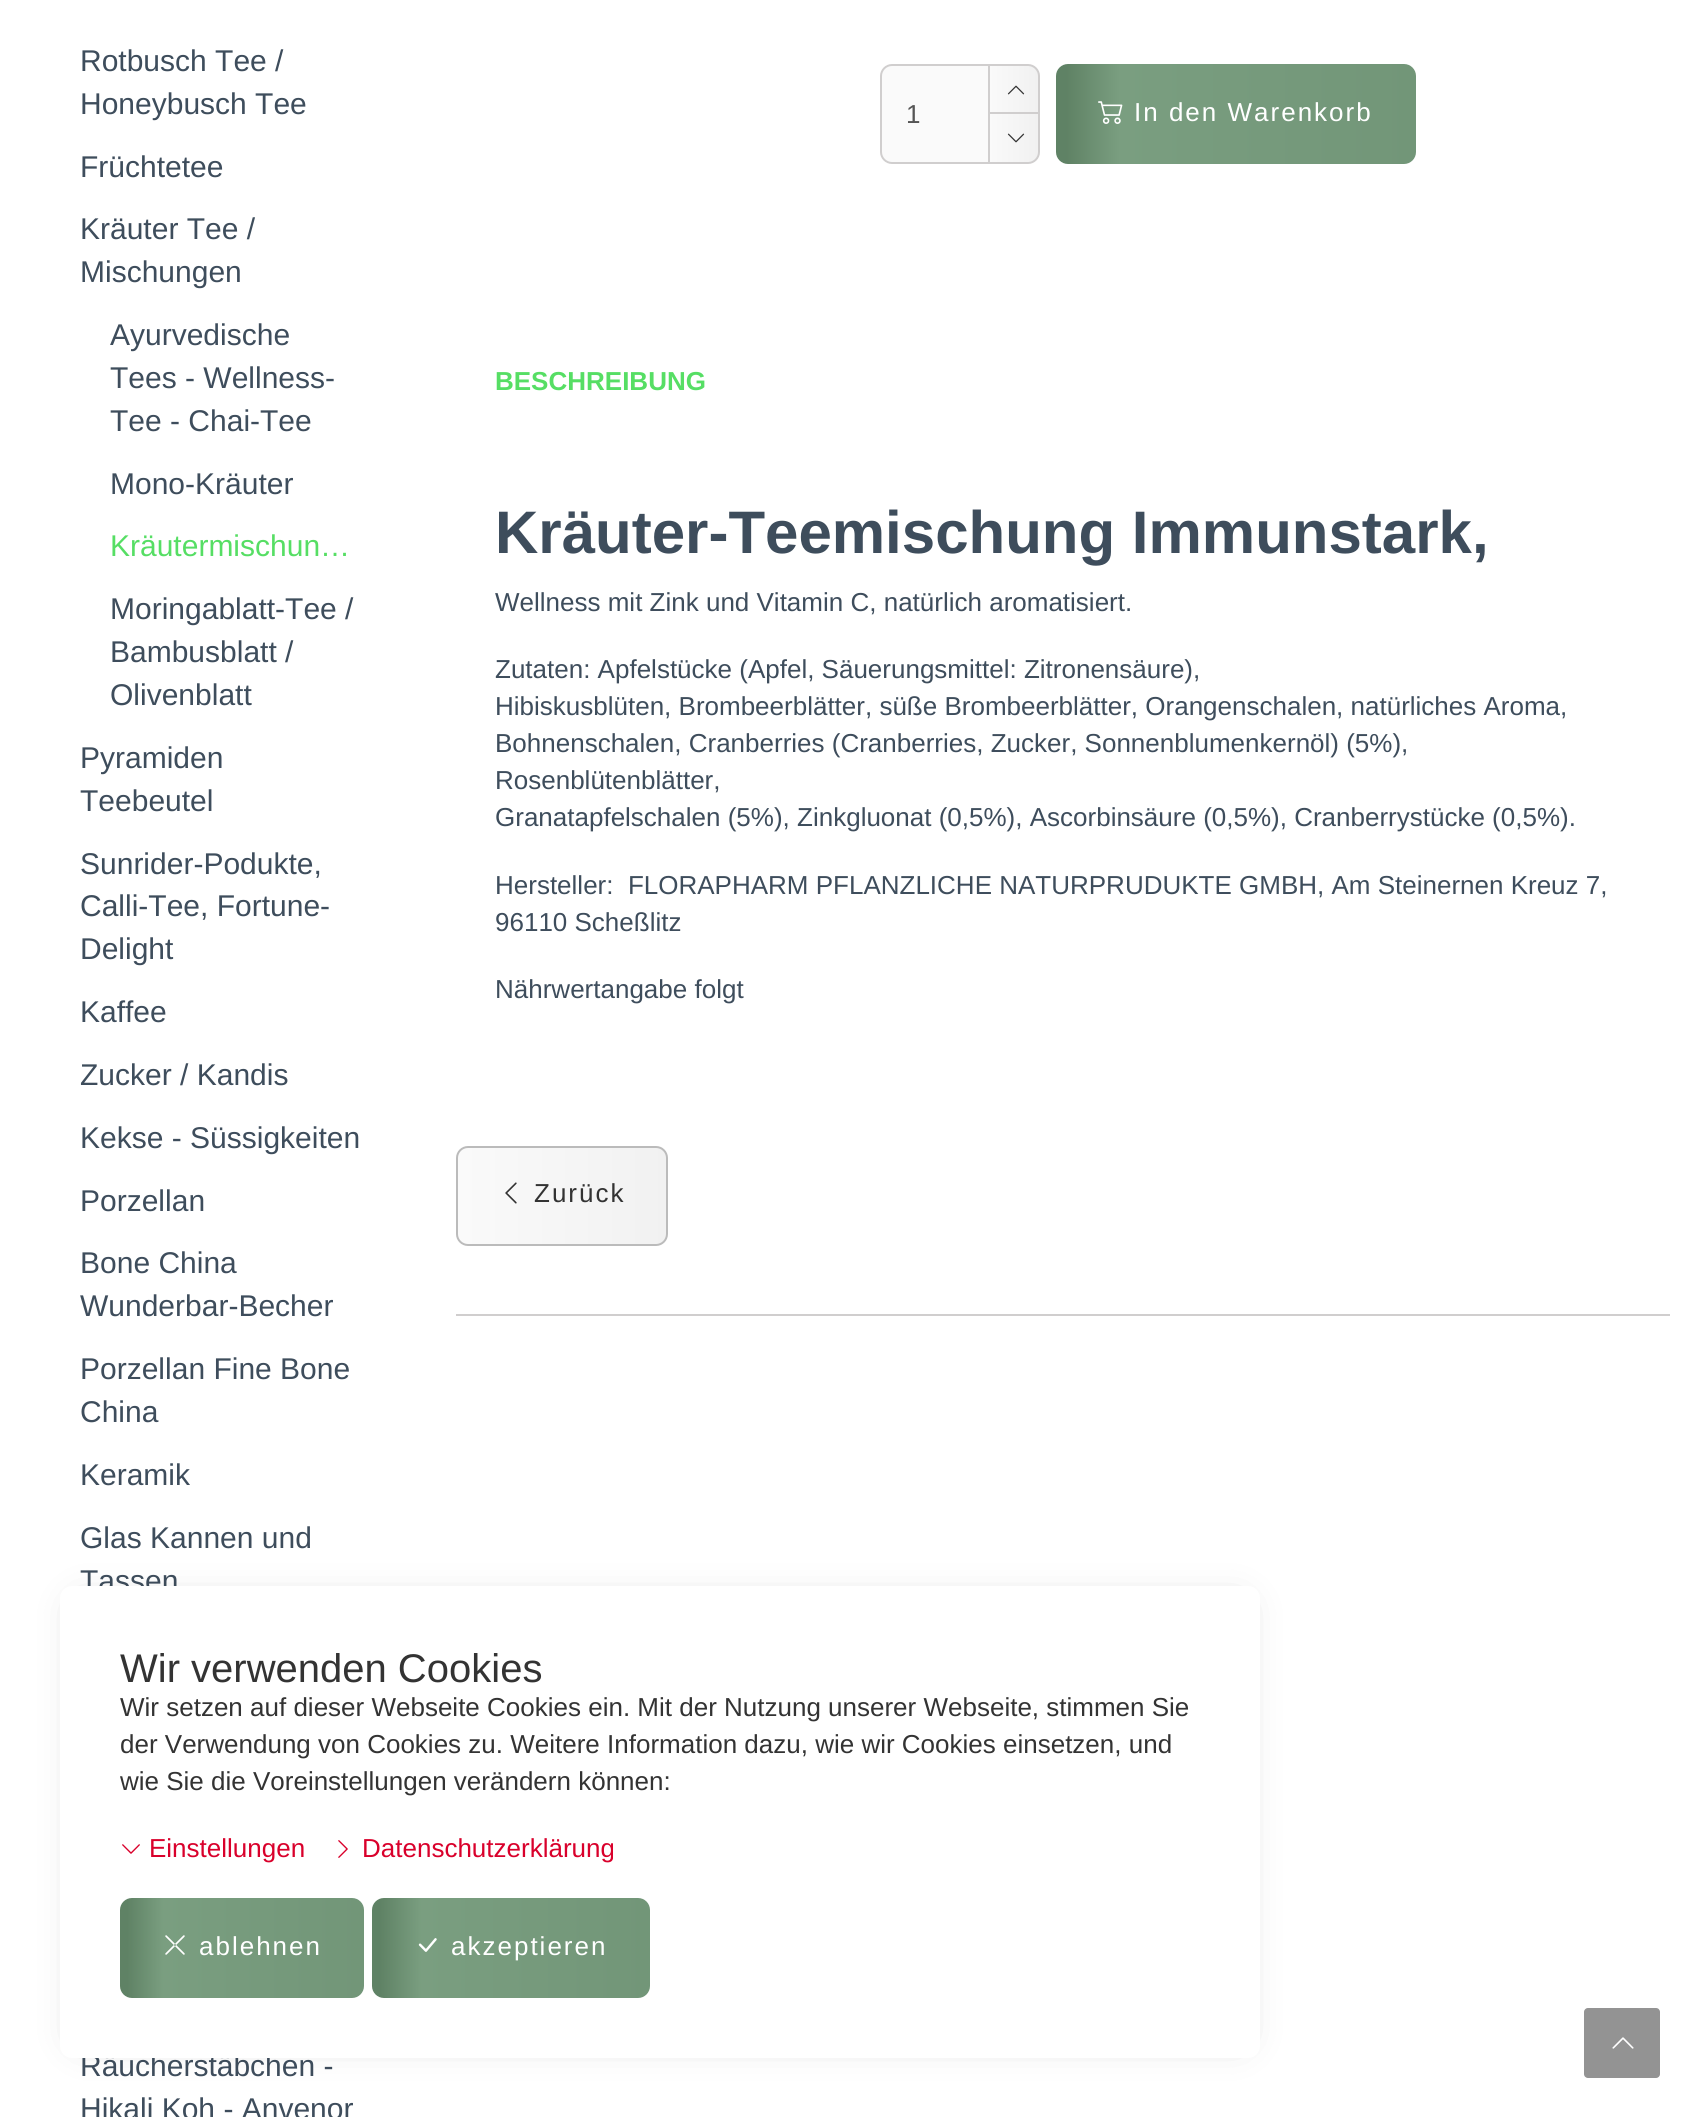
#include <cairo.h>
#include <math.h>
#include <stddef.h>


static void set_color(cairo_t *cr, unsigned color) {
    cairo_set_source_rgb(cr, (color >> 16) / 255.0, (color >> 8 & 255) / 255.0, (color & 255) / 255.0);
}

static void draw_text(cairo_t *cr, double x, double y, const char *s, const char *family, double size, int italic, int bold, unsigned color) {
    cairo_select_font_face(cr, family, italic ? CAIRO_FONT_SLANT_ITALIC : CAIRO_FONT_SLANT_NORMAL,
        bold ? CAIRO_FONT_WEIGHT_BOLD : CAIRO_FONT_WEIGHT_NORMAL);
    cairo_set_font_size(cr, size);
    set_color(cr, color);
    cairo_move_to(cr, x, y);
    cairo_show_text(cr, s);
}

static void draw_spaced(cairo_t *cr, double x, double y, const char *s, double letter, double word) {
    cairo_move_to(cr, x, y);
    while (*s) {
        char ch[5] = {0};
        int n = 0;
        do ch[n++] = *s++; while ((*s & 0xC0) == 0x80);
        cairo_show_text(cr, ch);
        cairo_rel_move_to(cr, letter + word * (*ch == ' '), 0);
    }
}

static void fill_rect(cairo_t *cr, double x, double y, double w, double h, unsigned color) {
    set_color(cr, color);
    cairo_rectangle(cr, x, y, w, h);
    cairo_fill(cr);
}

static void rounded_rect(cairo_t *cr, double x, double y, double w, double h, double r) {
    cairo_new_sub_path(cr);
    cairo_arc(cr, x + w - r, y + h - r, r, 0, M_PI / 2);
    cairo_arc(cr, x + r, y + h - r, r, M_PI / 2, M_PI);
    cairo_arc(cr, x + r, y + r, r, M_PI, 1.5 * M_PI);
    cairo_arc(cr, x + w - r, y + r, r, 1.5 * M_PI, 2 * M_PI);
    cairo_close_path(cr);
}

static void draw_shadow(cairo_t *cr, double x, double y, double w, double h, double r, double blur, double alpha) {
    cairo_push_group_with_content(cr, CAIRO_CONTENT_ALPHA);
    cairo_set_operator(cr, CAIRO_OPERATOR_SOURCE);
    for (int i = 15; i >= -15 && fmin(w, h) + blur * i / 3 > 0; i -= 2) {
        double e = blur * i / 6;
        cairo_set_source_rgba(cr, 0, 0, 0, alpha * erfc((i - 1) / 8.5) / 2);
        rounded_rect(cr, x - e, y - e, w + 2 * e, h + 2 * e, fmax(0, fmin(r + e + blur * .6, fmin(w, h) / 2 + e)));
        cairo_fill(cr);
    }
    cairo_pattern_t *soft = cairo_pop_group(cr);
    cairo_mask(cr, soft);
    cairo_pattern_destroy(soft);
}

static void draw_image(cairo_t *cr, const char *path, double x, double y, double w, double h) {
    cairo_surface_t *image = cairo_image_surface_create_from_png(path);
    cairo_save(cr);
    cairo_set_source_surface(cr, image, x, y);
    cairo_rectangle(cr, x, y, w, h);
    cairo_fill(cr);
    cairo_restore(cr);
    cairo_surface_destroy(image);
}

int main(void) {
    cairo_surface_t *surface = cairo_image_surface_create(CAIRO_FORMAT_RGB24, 1699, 2117);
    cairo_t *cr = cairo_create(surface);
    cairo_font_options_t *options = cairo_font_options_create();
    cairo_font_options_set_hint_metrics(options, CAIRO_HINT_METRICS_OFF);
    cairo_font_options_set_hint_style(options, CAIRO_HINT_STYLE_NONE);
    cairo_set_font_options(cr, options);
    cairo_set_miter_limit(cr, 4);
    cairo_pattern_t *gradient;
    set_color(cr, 0xFFFFFF);
    cairo_paint(cr);
    draw_text(cr, 80, 71, "Rotbusch Tee /", "Liberation Sans", 30, 0, 0, 0x3E4D5C);
    draw_text(cr, 80, 114, "Honeybusch Tee", "Liberation Sans", 30, 0, 0, 0x3E4D5C);
    draw_text(cr, 80, 177, "Früchtetee", "Liberation Sans", 30, 0, 0, 0x3E4D5C);
    draw_text(cr, 80, 239, "Kräuter Tee /", "Liberation Sans", 30, 0, 0, 0x3E4D5C);
    draw_text(cr, 80, 282, "Mischungen", "Liberation Sans", 30, 0, 0, 0x3E4D5C);
    draw_text(cr, 110, 345, "Ayurvedische", "Liberation Sans", 30, 0, 0, 0x3E4D5C);
    draw_text(cr, 110, 388, "Tees - Wellness-", "Liberation Sans", 30, 0, 0, 0x3E4D5C);
    draw_text(cr, 110, 431, "Tee - Chai-Tee", "Liberation Sans", 30, 0, 0, 0x3E4D5C);
    draw_text(cr, 110, 494, "Mono-Kräuter", "Liberation Sans", 30, 0, 0, 0x3E4D5C);
    draw_text(cr, 110, 556, "Kräutermischun…", "Liberation Sans", 30, 0, 0, 0x56DE64);
    draw_text(cr, 110, 619, "Moringablatt-Tee /", "Liberation Sans", 30, 0, 0, 0x3E4D5C);
    draw_text(cr, 110, 662, "Bambusblatt /", "Liberation Sans", 30, 0, 0, 0x3E4D5C);
    draw_text(cr, 110, 705, "Olivenblatt", "Liberation Sans", 30, 0, 0, 0x3E4D5C);
    draw_text(cr, 80, 768, "Pyramiden", "Liberation Sans", 30, 0, 0, 0x3E4D5C);
    draw_text(cr, 80, 811, "Teebeutel", "Liberation Sans", 30, 0, 0, 0x3E4D5C);
    draw_text(cr, 80, 874, "Sunrider-Podukte,", "Liberation Sans", 30, 0, 0, 0x3E4D5C);
    draw_text(cr, 80, 916, "Calli-Tee, Fortune-", "Liberation Sans", 30, 0, 0, 0x3E4D5C);
    draw_text(cr, 80, 959, "Delight", "Liberation Sans", 30, 0, 0, 0x3E4D5C);
    draw_text(cr, 80, 1022, "Kaffee", "Liberation Sans", 30, 0, 0, 0x3E4D5C);
    draw_text(cr, 80, 1085, "Zucker / Kandis", "Liberation Sans", 30, 0, 0, 0x3E4D5C);
    draw_text(cr, 80, 1148, "Kekse - Süssigkeiten", "Liberation Sans", 30, 0, 0, 0x3E4D5C);
    draw_text(cr, 80, 1211, "Porzellan", "Liberation Sans", 30, 0, 0, 0x3E4D5C);
    draw_text(cr, 80, 1273, "Bone China", "Liberation Sans", 30, 0, 0, 0x3E4D5C);
    draw_text(cr, 80, 1316, "Wunderbar-Becher", "Liberation Sans", 30, 0, 0, 0x3E4D5C);
    draw_text(cr, 80, 1379, "Porzellan Fine Bone", "Liberation Sans", 30, 0, 0, 0x3E4D5C);
    draw_text(cr, 80, 1422, "China", "Liberation Sans", 30, 0, 0, 0x3E4D5C);
    draw_text(cr, 80, 1485, "Keramik", "Liberation Sans", 30, 0, 0, 0x3E4D5C);
    draw_text(cr, 80, 1548, "Glas Kannen und", "Liberation Sans", 30, 0, 0, 0x3E4D5C);
    draw_text(cr, 80, 1591, "Tassen", "Liberation Sans", 30, 0, 0, 0x3E4D5C);
    draw_text(cr, 80, 2076, "Räucherstäbchen -", "Liberation Sans", 30, 0, 0, 0x3E4D5C);
    draw_text(cr, 80, 2119, "Hikali Koh - Anvenor", "Liberation Sans", 30, 0, 0, 0x3E4D5C);
    gradient = cairo_pattern_create_linear(988, 90, 1132, 90);
    cairo_pattern_add_color_stop_rgba(gradient, 0.01, 0.98, 0.98, 0.98, 1);
    cairo_pattern_add_color_stop_rgba(gradient, 0.42, 0.937, 0.937, 0.937, 1);
    cairo_pattern_add_color_stop_rgba(gradient, 1, 0.875, 0.875, 0.875, 1);
    cairo_set_source(cr, gradient);
    cairo_pattern_destroy(gradient);
    cairo_new_path(cr);
    cairo_move_to(cr, 989, 65);
    cairo_line_to(cr, 1028, 65);
    cairo_curve_to(cr, 1034, 65, 1039, 70, 1039, 76);
    cairo_line_to(cr, 1039, 115);
    cairo_line_to(cr, 989, 115);
    cairo_close_path(cr);
    cairo_fill_preserve(cr);
    set_color(cr, 0xD0CECE);
    cairo_stroke(cr);
    gradient = cairo_pattern_create_linear(988, 138, 1132, 138);
    cairo_pattern_add_color_stop_rgba(gradient, 0.01, 0.98, 0.98, 0.98, 1);
    cairo_pattern_add_color_stop_rgba(gradient, 0.42, 0.937, 0.937, 0.937, 1);
    cairo_pattern_add_color_stop_rgba(gradient, 1, 0.875, 0.875, 0.875, 1);
    cairo_set_source(cr, gradient);
    cairo_pattern_destroy(gradient);
    cairo_new_path(cr);
    cairo_move_to(cr, 989, 113);
    cairo_line_to(cr, 1039, 113);
    cairo_line_to(cr, 1039, 152);
    cairo_curve_to(cr, 1039, 158, 1034, 163, 1028, 163);
    cairo_line_to(cr, 989, 163);
    cairo_close_path(cr);
    cairo_fill_preserve(cr);
    set_color(cr, 0xD0CECE);
    cairo_stroke(cr);
    set_color(cr, 0xFAFAFA);
    cairo_new_path(cr);
    cairo_move_to(cr, 892, 65);
    cairo_line_to(cr, 989, 65);
    cairo_line_to(cr, 989, 163);
    cairo_line_to(cr, 892, 163);
    cairo_curve_to(cr, 886, 163, 881, 158, 881, 152);
    cairo_line_to(cr, 881, 76);
    cairo_curve_to(cr, 881, 70, 886, 65, 892, 65);
    cairo_close_path(cr);
    cairo_fill_preserve(cr);
    set_color(cr, 0xD0CECE);
    cairo_stroke(cr);
    draw_text(cr, 906, 123, "1", "Liberation Sans", 26, 0, 0, 0x555555);
    draw_image(cr, "assets/img1.png", 1007, 85, 18, 10);
    draw_image(cr, "assets/img2.png", 1007, 133, 18, 10);
    gradient = cairo_pattern_create_linear(1056, 114, 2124, 114);
    cairo_pattern_add_color_stop_rgba(gradient, 0.01, 0.373, 0.51, 0.396, 1);
    cairo_pattern_add_color_stop_rgba(gradient, 0.06, 0.478, 0.62, 0.502, 1);
    cairo_pattern_add_color_stop_rgba(gradient, 1, 0.373, 0.51, 0.396, 1);
    cairo_set_source(cr, gradient);
    cairo_pattern_destroy(gradient);
    rounded_rect(cr, 1056, 64, 360, 100, 12);
    cairo_fill(cr);
    draw_image(cr, "assets/img3.png", 1098, 101, 25, 23);
    set_color(cr, 0xFFFFFF);
    draw_spaced(cr, 1134, 121, "In den Warenkorb", 2, 0);
    draw_text(cr, 495, 390, "BESCHREIBUNG", "Liberation Sans", 26, 0, 1, 0x56DE64);
    draw_text(cr, 495, 553, "Kräuter-Teemischung Immunstark,", "Liberation Sans", 60, 0, 1, 0x3E4D5C);
    draw_text(cr, 495, 611, "Wellness mit Zink und Vitamin C, natürlich aromatisiert.", "Liberation Sans", 26, 0, 0, 0x3E4D5C);
    draw_text(cr, 495, 678, "Zutaten: Apfelstücke (Apfel, Säuerungsmittel: Zitronensäure),", "Liberation Sans", 26, 0, 0, 0x3E4D5C);
    draw_text(cr, 495, 715, "Hibiskusblüten, Brombeerblätter, süße Brombeerblätter, Orangenschalen, natürliches Aroma,", "Liberation Sans", 26, 0, 0, 0x3E4D5C);
    draw_text(cr, 495, 752, "Bohnenschalen, Cranberries (Cranberries, Zucker, Sonnenblumenkernöl) (5%),", "Liberation Sans", 26, 0, 0, 0x3E4D5C);
    draw_text(cr, 495, 789, "Rosenblütenblätter,", "Liberation Sans", 26, 0, 0, 0x3E4D5C);
    draw_text(cr, 495, 826, "Granatapfelschalen (5%), Zinkgluonat (0,5%), Ascorbinsäure (0,5%), Cranberrystücke (0,5%).", "Liberation Sans", 26, 0, 0, 0x3E4D5C);
    draw_text(cr, 495, 894, "Hersteller:  FLORAPHARM PFLANZLICHE NATURPRUDUKTE GMBH, Am Steinernen Kreuz 7,", "Liberation Sans", 26, 0, 0, 0x3E4D5C);
    draw_text(cr, 495, 931, "96110 Scheßlitz", "Liberation Sans", 26, 0, 0, 0x3E4D5C);
    draw_text(cr, 495, 998, "Nährwertangabe folgt", "Liberation Sans", 26, 0, 0, 0x3E4D5C);
    gradient = cairo_pattern_create_linear(456, 1196, 1080, 1196);
    cairo_pattern_add_color_stop_rgba(gradient, 0.01, 0.98, 0.98, 0.98, 1);
    cairo_pattern_add_color_stop_rgba(gradient, 0.42, 0.937, 0.937, 0.937, 1);
    cairo_pattern_add_color_stop_rgba(gradient, 1, 0.875, 0.875, 0.875, 1);
    cairo_set_source(cr, gradient);
    cairo_pattern_destroy(gradient);
    rounded_rect(cr, 457, 1147, 210, 98, 11);
    cairo_fill_preserve(cr);
    set_color(cr, 0xBBBBBB);
    cairo_stroke(cr);
    draw_image(cr, "assets/img4.png", 505, 1182, 12, 22);
    set_color(cr, 0x333333);
    draw_spaced(cr, 534, 1202, "Zurück", 2, 0);
    fill_rect(cr, 456, 1314, 1214, 2, 0xD0CECE);
    set_color(cr, 0x000000);
    draw_shadow(cr, 80, 1606, 1160, 432, 0, 20, 0.2);
    set_color(cr, 0xFFFFFF);
    rounded_rect(cr, 60, 1586, 1200, 472, 12);
    cairo_fill(cr);
    draw_text(cr, 120, 1682, "Wir verwenden Cookies", "Liberation Sans", 40, 0, 0, 0x333333);
    draw_text(cr, 120, 1716, "Wir setzen auf dieser Webseite Cookies ein. Mit der Nutzung unserer Webseite, stimmen Sie", "Liberation Sans", 26, 0, 0, 0x333333);
    draw_text(cr, 120, 1753, "der Verwendung von Cookies zu. Weitere Information dazu, wie wir Cookies einsetzen, und", "Liberation Sans", 26, 0, 0, 0x333333);
    draw_text(cr, 120, 1790, "wie Sie die Voreinstellungen verändern können:", "Liberation Sans", 26, 0, 0, 0x333333);
    draw_image(cr, "assets/img5.png", 122, 1844, 18, 10);
    draw_text(cr, 149, 1857, "Einstellungen", "Liberation Sans", 26, 0, 0, 0xD9002B);
    draw_image(cr, "assets/img6.png", 338, 1840, 10, 18);
    draw_text(cr, 362, 1857, "Datenschutzerklärung", "Liberation Sans", 26, 0, 0, 0xD9002B);
    gradient = cairo_pattern_create_linear(120, 1948, 840, 1948);
    cairo_pattern_add_color_stop_rgba(gradient, 0.01, 0.373, 0.51, 0.396, 1);
    cairo_pattern_add_color_stop_rgba(gradient, 0.06, 0.478, 0.62, 0.502, 1);
    cairo_pattern_add_color_stop_rgba(gradient, 1, 0.373, 0.51, 0.396, 1);
    cairo_set_source(cr, gradient);
    cairo_pattern_destroy(gradient);
    rounded_rect(cr, 120, 1898, 244, 100, 12);
    cairo_fill(cr);
    draw_image(cr, "assets/img7.png", 165, 1935, 20, 20);
    set_color(cr, 0xFFFFFF);
    draw_spaced(cr, 199, 1955, "ablehnen", 2, 0);
    gradient = cairo_pattern_create_linear(372, 1948, 1194, 1948);
    cairo_pattern_add_color_stop_rgba(gradient, 0.01, 0.373, 0.51, 0.396, 1);
    cairo_pattern_add_color_stop_rgba(gradient, 0.06, 0.478, 0.62, 0.502, 1);
    cairo_pattern_add_color_stop_rgba(gradient, 1, 0.373, 0.51, 0.396, 1);
    cairo_set_source(cr, gradient);
    cairo_pattern_destroy(gradient);
    rounded_rect(cr, 372, 1898, 278, 100, 12);
    cairo_fill(cr);
    draw_image(cr, "assets/img8.png", 418, 1938, 19, 14);
    set_color(cr, 0xFFFFFF);
    draw_spaced(cr, 451, 1955, "akzeptieren", 2, 0);
    set_color(cr, 0x939393);
    rounded_rect(cr, 1584, 2008, 76, 70, 4);
    cairo_fill(cr);
    draw_image(cr, "assets/img9.png", 1612, 2037, 22, 12);
    cairo_surface_write_to_png(surface, "output.png");
    cairo_font_options_destroy(options);
    cairo_destroy(cr);
    cairo_surface_destroy(surface);
    return 0;
}
